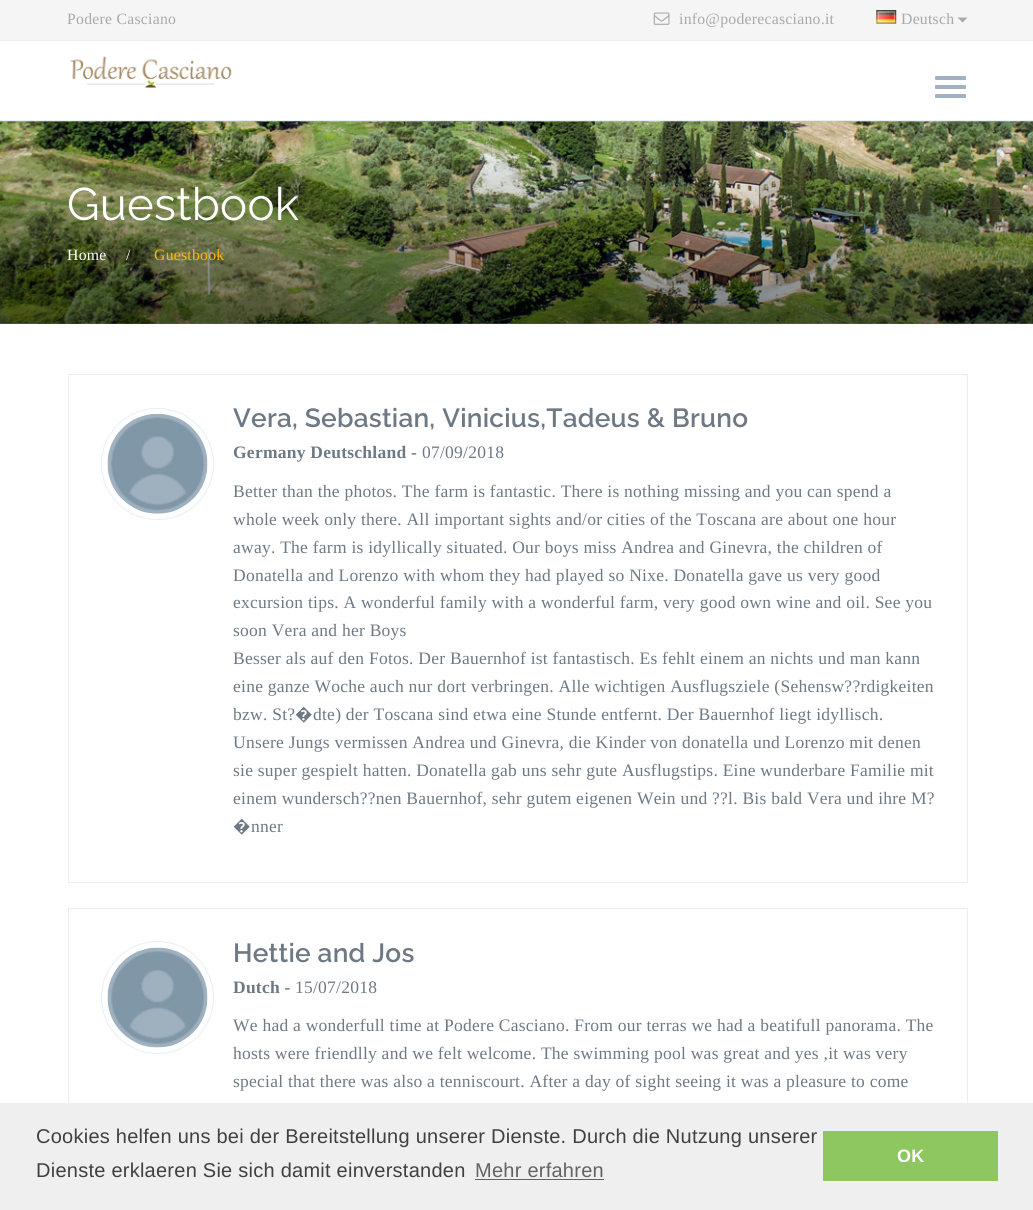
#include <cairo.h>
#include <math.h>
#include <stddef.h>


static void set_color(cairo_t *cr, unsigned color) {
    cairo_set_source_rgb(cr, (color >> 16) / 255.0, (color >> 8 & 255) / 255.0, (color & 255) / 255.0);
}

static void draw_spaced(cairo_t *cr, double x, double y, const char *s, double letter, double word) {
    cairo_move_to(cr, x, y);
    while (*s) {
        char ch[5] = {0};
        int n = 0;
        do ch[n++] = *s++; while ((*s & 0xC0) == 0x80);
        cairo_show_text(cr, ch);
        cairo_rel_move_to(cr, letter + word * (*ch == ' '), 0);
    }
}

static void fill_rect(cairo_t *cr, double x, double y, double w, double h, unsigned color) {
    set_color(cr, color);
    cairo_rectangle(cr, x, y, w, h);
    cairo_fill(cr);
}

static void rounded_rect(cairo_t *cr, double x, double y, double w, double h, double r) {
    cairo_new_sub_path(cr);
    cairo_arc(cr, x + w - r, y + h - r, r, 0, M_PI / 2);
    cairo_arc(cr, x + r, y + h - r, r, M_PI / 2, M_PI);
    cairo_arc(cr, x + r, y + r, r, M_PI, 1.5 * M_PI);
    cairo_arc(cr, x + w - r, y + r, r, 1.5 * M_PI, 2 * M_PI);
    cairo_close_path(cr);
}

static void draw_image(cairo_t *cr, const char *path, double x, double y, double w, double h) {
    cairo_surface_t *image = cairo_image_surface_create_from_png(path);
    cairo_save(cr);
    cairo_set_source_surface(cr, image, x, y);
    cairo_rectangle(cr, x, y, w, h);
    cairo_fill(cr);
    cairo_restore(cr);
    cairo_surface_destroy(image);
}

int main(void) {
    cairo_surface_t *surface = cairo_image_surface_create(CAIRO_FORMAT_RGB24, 1033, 1210);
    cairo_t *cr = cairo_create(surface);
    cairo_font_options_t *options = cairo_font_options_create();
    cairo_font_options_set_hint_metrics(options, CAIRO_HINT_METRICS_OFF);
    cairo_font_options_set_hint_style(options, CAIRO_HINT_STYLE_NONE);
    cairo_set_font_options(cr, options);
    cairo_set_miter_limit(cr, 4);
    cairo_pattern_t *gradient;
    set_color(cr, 0xFFFFFF);
    cairo_paint(cr);
    fill_rect(cr, 0, 0, 1033, 40, 0xF5F5F5);
    fill_rect(cr, 0, 40, 1033, 1, 0xEDEDED);
    cairo_select_font_face(cr, "Liberation Serif", CAIRO_FONT_SLANT_NORMAL, CAIRO_FONT_WEIGHT_NORMAL);
    cairo_set_font_size(cr, 15.75);
    set_color(cr, 0xA9A9A9);
    draw_spaced(cr, 67, 24, "Podere Casciano", 0.25, 0);
    draw_image(cr, "assets/img1.png", 653, 12, 17, 13);
    draw_spaced(cr, 679, 24, "info@poderecasciano.it", 0.25, 0);
    draw_image(cr, "assets/img2.png", 876, 10, 21, 14);
    draw_spaced(cr, 901, 24, "Deutsch", 0.25, 0);
    cairo_new_path(cr);
    cairo_move_to(cr, 957.5, 17.5);
    cairo_line_to(cr, 967.5, 17.5);
    cairo_line_to(cr, 962.5, 22.5);
    cairo_close_path(cr);
    cairo_fill(cr);
    fill_rect(cr, 0, 120, 1033, 1, 0xE6EFF2);
    draw_image(cr, "assets/img3.png", 70, 56, 162, 32);
    set_color(cr, 0xA1B1C1);
    rounded_rect(cr, 935, 76, 31, 4, 1);
    cairo_fill(cr);
    rounded_rect(cr, 935, 85, 31, 4, 1);
    cairo_fill(cr);
    rounded_rect(cr, 935, 94, 31, 4, 1);
    cairo_fill(cr);
    draw_image(cr, "assets/img4.png", 0, 121, 1033, 203);
    gradient = cairo_pattern_create_linear(517, 121, 517, 324);
    cairo_pattern_add_color_stop_rgba(gradient, 0.13, 0, 0, 0, 0);
    cairo_pattern_add_color_stop_rgba(gradient, 1, 0, 0, 0, 0.5);
    cairo_set_source(cr, gradient);
    cairo_pattern_destroy(gradient);
    cairo_rectangle(cr, 0, 155, 1033, 169);
    cairo_fill(cr);
    cairo_select_font_face(cr, "Raleway", CAIRO_FONT_SLANT_NORMAL, CAIRO_FONT_WEIGHT_NORMAL);
    cairo_set_font_size(cr, 45.5);
    set_color(cr, 0xFFFFFF);
    draw_spaced(cr, 67, 220, "Guestbook", 0.25, 0);
    cairo_select_font_face(cr, "Liberation Serif", CAIRO_FONT_SLANT_NORMAL, CAIRO_FONT_WEIGHT_NORMAL);
    cairo_set_font_size(cr, 15.75);
    draw_spaced(cr, 67, 260, "Home", 0.25, 0);
    draw_spaced(cr, 126, 260, "/", 0.25, 0);
    set_color(cr, 0xFFB600);
    draw_spaced(cr, 154, 260, "Guestbook", 0.25, 0);
    cairo_rectangle(cr, 68.5, 374.5, 899, 508);
    set_color(cr, 0xE6EFF2);
    cairo_set_line_width(cr, 1);
    cairo_stroke(cr);
    rounded_rect(cr, 101.5, 408.5, 112, 111, 55.5);
    cairo_stroke(cr);
    draw_image(cr, "assets/img5.png", 107, 413, 101, 101);
    cairo_select_font_face(cr, "Raleway SemiBold", CAIRO_FONT_SLANT_NORMAL, CAIRO_FONT_WEIGHT_NORMAL);
    cairo_set_font_size(cr, 26.25);
    set_color(cr, 0x6E7984);
    draw_spaced(cr, 233, 427, "Vera, Sebastian, Vinicius,Tadeus & Bruno", 0.25, 0);
    cairo_select_font_face(cr, "Liberation Serif", CAIRO_FONT_SLANT_NORMAL, CAIRO_FONT_WEIGHT_BOLD);
    cairo_set_font_size(cr, 17.5);
    draw_spaced(cr, 233, 458, "Germany Deutschland -", 0.25, 0);
    cairo_select_font_face(cr, "Liberation Serif", CAIRO_FONT_SLANT_NORMAL, CAIRO_FONT_WEIGHT_NORMAL);
    draw_spaced(cr, 422, 458, "07/09/2018", 0.25, 0);
    draw_spaced(cr, 233, 497, "Better than the photos. The farm is fantastic. There is nothing missing and you can spend a", 0.25, 0);
    draw_spaced(cr, 233, 525, "whole week only there. All important sights and/or cities of the Toscana are about one hour", 0.25, 0);
    draw_spaced(cr, 233, 553, "away. The farm is idyllically situated. Our boys miss Andrea and Ginevra, the children of", 0.25, 0);
    draw_spaced(cr, 233, 581, "Donatella and Lorenzo with whom they had played so Nixe. Donatella gave us very good", 0.25, 0);
    draw_spaced(cr, 233, 608, "excursion tips. A wonderful family with a wonderful farm, very good own wine and oil. See you", 0.25, 0);
    draw_spaced(cr, 233, 636, "soon Vera and her Boys", 0.25, 0);
    draw_spaced(cr, 233, 664, "Besser als auf den Fotos. Der Bauernhof ist fantastisch. Es fehlt einem an nichts und man kann", 0.25, 0);
    draw_spaced(cr, 233, 692, "eine ganze Woche auch nur dort verbringen. Alle wichtigen Ausflugsziele (Sehensw?\077rdigkeiten", 0.25, 0);
    draw_spaced(cr, 233, 720, "bzw. St?", 0.25, 0);
    cairo_select_font_face(cr, "Noto Sans", CAIRO_FONT_SLANT_NORMAL, CAIRO_FONT_WEIGHT_NORMAL);
    draw_spaced(cr, 295, 720, "�", 0.25, 0);
    cairo_select_font_face(cr, "Liberation Serif", CAIRO_FONT_SLANT_NORMAL, CAIRO_FONT_WEIGHT_NORMAL);
    draw_spaced(cr, 313, 720, "dte) der Toscana sind etwa eine Stunde entfernt. Der Bauernhof liegt idyllisch.", 0.25, 0);
    draw_spaced(cr, 233, 748, "Unsere Jungs vermissen Andrea und Ginevra, die Kinder von donatella und Lorenzo mit denen", 0.25, 0);
    draw_spaced(cr, 233, 776, "sie super gespielt hatten. Donatella gab uns sehr gute Ausflugstips. Eine wunderbare Familie mit", 0.25, 0);
    draw_spaced(cr, 233, 804, "einem wundersch?\077nen Bauernhof, sehr gutem eigenen Wein und ?\077l. Bis bald Vera und ihre M?", 0.25, 0);
    cairo_select_font_face(cr, "Noto Sans", CAIRO_FONT_SLANT_NORMAL, CAIRO_FONT_WEIGHT_NORMAL);
    draw_spaced(cr, 233, 832, "�", 0.25, 0);
    cairo_select_font_face(cr, "Liberation Serif", CAIRO_FONT_SLANT_NORMAL, CAIRO_FONT_WEIGHT_NORMAL);
    draw_spaced(cr, 251, 832, "nner", 0.25, 0);
    cairo_rectangle(cr, 68.5, 908.5, 899, 285);
    set_color(cr, 0xE6EFF2);
    cairo_stroke(cr);
    cairo_arc(cr, 157.5, 997.5, 56, 0, 2 * M_PI);
    cairo_stroke(cr);
    draw_image(cr, "assets/img6.png", 107, 947, 101, 101);
    cairo_select_font_face(cr, "Raleway SemiBold", CAIRO_FONT_SLANT_NORMAL, CAIRO_FONT_WEIGHT_NORMAL);
    cairo_set_font_size(cr, 26.25);
    set_color(cr, 0x6E7984);
    draw_spaced(cr, 233, 962, "Hettie and Jos", 0.25, 0);
    cairo_select_font_face(cr, "Liberation Serif", CAIRO_FONT_SLANT_NORMAL, CAIRO_FONT_WEIGHT_BOLD);
    cairo_set_font_size(cr, 17.5);
    draw_spaced(cr, 233, 993, "Dutch -", 0.25, 0);
    cairo_select_font_face(cr, "Liberation Serif", CAIRO_FONT_SLANT_NORMAL, CAIRO_FONT_WEIGHT_NORMAL);
    draw_spaced(cr, 295, 993, "15/07/2018", 0.25, 0);
    draw_spaced(cr, 233, 1031, "We had a wonderfull time at Podere Casciano. From our terras we had a beatifull panorama. The", 0.25, 0);
    draw_spaced(cr, 233, 1059, "hosts were friendlly and we felt welcome. The swimming pool was great and yes ,it was very", 0.25, 0);
    draw_spaced(cr, 233, 1087, "special that there was also a tenniscourt. After a day of sight seeing it was a pleasure to come", 0.25, 0);
    fill_rect(cr, 0, 1103, 1033, 107, 0xEFEFEF);
    cairo_select_font_face(cr, "Liberation Sans", CAIRO_FONT_SLANT_NORMAL, CAIRO_FONT_WEIGHT_NORMAL);
    cairo_set_font_size(cr, 20);
    set_color(cr, 0x404040);
    draw_spaced(cr, 36, 1143, "Cookies helfen uns bei der Bereitstellung unserer Dienste. Durch die Nutzung unserer", 0.25, 0);
    draw_spaced(cr, 36, 1177, "Dienste erklaeren Sie sich damit einverstanden", 0.25, 0);
    set_color(cr, 0x636363);
    draw_spaced(cr, 475, 1177, "Mehr erfahren", 0.25, 0);
    fill_rect(cr, 475, 1179, 129, 1, 0x636363);
    fill_rect(cr, 823, 1131, 175, 50, 0x8EC760);
    cairo_select_font_face(cr, "Liberation Sans", CAIRO_FONT_SLANT_NORMAL, CAIRO_FONT_WEIGHT_BOLD);
    cairo_set_font_size(cr, 18);
    set_color(cr, 0xFFFFFF);
    draw_spaced(cr, 897, 1162, "OK", 0.25, 0);
    cairo_surface_write_to_png(surface, "output.png");
    cairo_font_options_destroy(options);
    cairo_destroy(cr);
    cairo_surface_destroy(surface);
    return 0;
}
